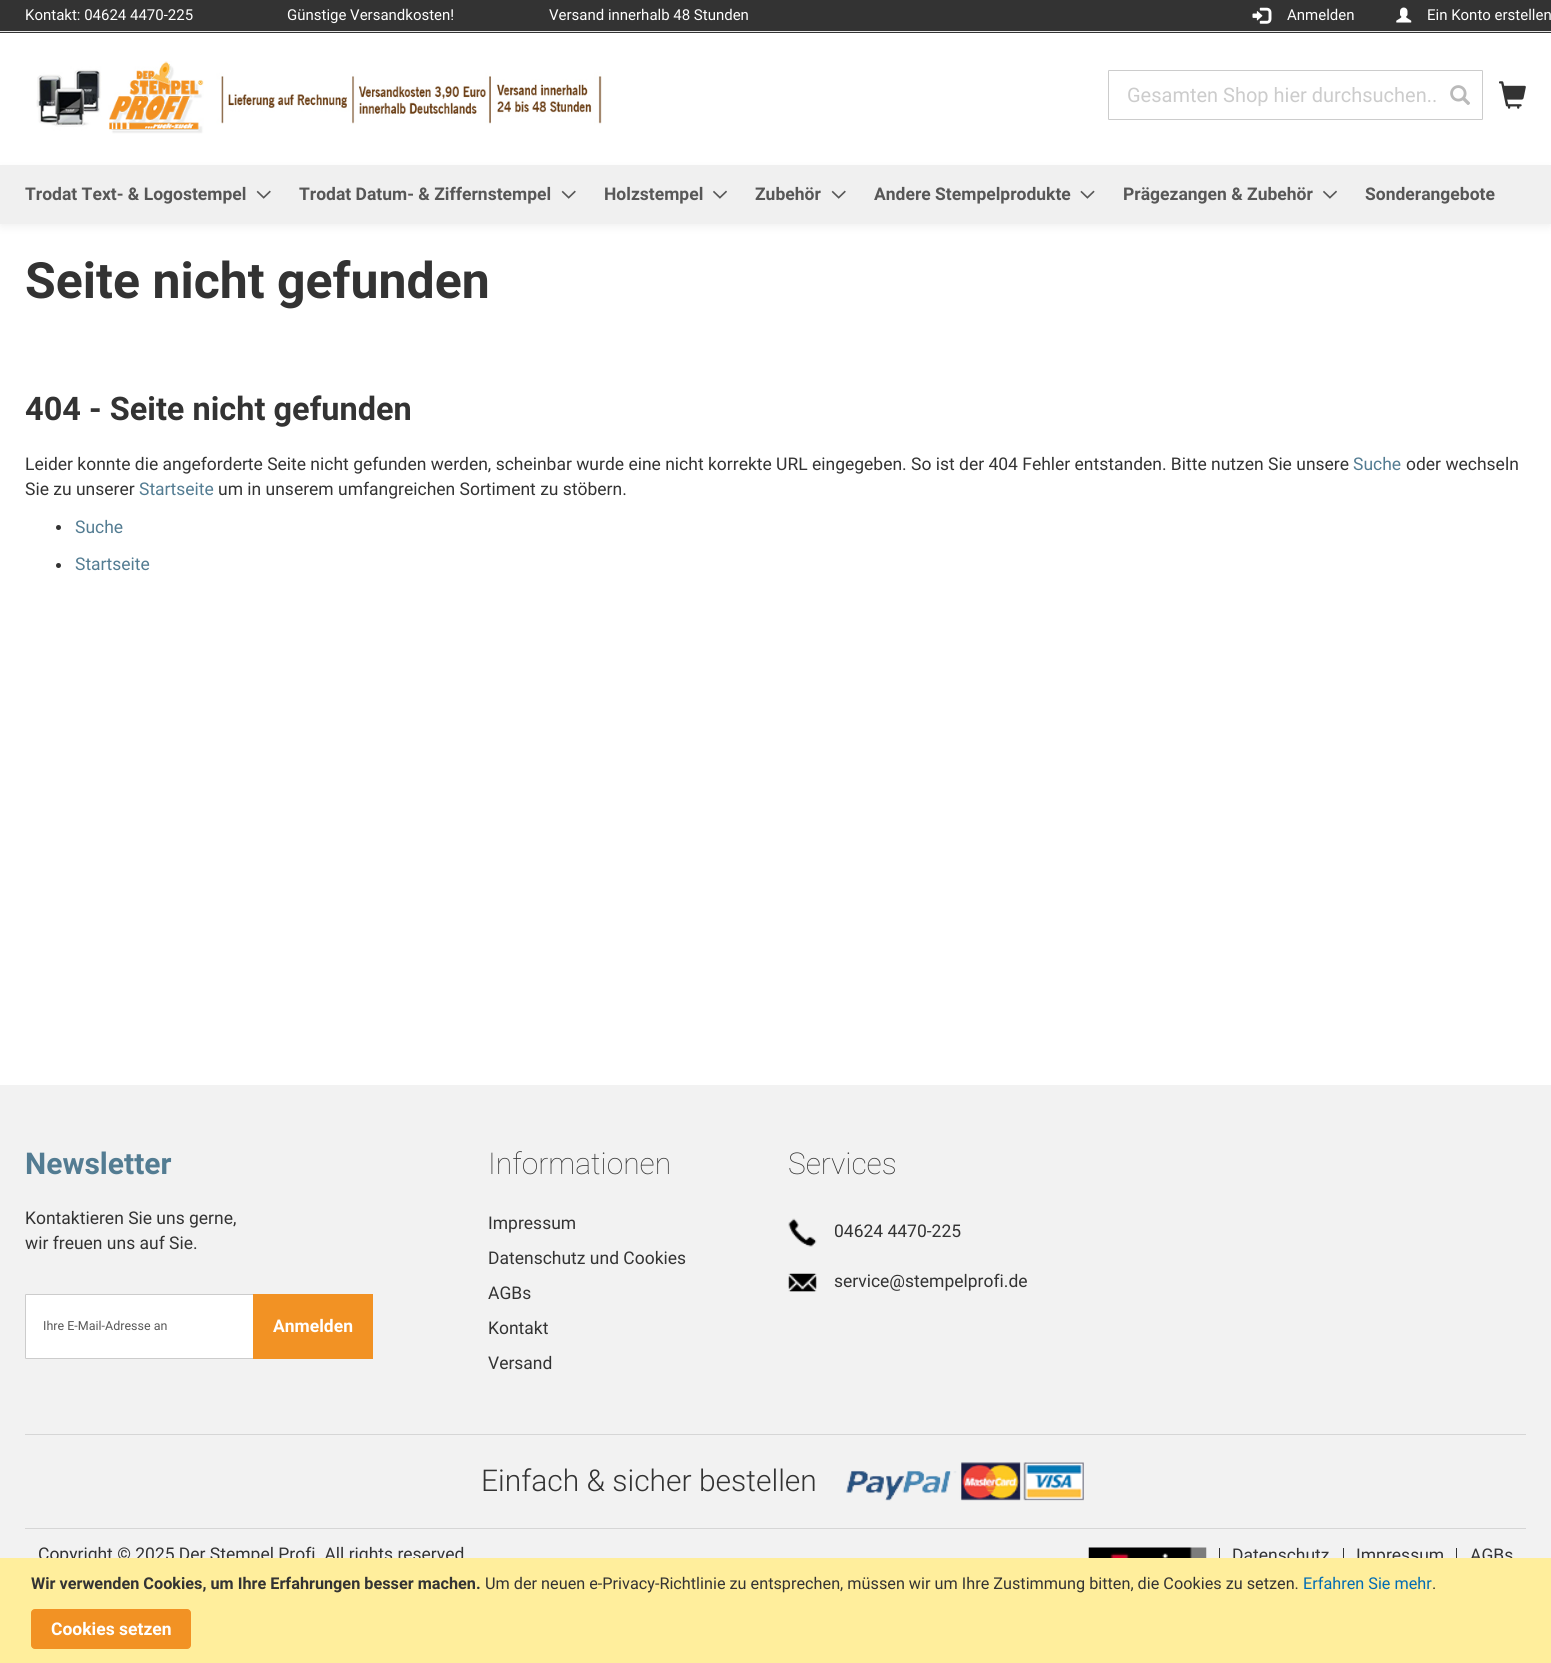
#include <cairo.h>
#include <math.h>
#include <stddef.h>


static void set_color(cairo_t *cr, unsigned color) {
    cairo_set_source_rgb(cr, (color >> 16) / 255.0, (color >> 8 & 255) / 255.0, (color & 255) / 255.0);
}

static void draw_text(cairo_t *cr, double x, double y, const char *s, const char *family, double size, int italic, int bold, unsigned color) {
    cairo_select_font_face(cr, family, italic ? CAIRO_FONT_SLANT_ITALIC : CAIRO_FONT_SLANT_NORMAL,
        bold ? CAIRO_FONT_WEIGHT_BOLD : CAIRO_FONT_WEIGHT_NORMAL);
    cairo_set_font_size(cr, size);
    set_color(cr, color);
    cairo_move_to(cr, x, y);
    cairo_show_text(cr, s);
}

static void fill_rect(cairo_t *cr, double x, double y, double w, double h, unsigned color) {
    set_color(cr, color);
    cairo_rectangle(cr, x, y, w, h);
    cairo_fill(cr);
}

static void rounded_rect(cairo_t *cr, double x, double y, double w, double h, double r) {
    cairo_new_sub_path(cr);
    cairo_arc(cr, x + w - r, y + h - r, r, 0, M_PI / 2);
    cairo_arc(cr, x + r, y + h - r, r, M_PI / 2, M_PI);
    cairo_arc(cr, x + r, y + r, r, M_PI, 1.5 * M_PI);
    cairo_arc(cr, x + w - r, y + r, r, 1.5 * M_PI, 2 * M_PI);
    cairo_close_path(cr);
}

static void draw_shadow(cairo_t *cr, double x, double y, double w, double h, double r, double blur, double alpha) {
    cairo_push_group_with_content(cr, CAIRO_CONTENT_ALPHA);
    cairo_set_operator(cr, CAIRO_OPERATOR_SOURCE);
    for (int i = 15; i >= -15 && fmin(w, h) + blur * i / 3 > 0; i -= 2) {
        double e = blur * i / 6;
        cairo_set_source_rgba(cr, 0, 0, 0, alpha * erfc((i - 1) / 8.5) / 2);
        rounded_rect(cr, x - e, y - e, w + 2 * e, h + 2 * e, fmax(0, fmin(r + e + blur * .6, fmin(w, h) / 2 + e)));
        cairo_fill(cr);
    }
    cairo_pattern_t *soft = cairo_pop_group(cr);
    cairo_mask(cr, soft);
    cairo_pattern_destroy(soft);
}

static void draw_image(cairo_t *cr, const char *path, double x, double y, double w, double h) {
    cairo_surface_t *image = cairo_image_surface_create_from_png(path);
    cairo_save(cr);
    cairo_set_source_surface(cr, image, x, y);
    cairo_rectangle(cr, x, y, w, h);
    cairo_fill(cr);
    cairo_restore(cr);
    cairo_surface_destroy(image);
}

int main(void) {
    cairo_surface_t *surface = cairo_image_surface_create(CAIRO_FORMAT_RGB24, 1551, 1663);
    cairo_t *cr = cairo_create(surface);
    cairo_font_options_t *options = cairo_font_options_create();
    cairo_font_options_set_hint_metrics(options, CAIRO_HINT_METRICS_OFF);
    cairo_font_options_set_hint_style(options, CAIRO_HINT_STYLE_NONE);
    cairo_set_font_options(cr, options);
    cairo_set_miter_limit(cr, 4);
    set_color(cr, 0xFFFFFF);
    cairo_paint(cr);
    fill_rect(cr, 0, 0, 1551, 33, 0x333333);
    fill_rect(cr, 0, 31, 1551, 1, 0xE8E8E8);
    draw_text(cr, 25, 20, "Kontakt: 04624 4470-225", "Roboto", 15, 0, 0, 0xFFFFFF);
    draw_text(cr, 287, 20, "Günstige Versandkosten!", "Roboto", 15, 0, 0, 0xFFFFFF);
    draw_text(cr, 549, 20, "Versand innerhalb 48 Stunden", "Roboto", 15, 0, 0, 0xFFFFFF);
    draw_image(cr, "assets/img1.png", 1252, 7, 20, 17);
    draw_text(cr, 1287, 20, "Anmelden", "Roboto", 15, 0, 0, 0xFFFFFF);
    draw_image(cr, "assets/img2.png", 1396, 7, 16, 16);
    draw_text(cr, 1427, 20, "Ein Konto erstellen", "Roboto", 15, 0, 0, 0xFFFFFF);
    draw_image(cr, "assets/img3.png", 36, 61, 566, 73);
    rounded_rect(cr, 1108.5, 70.5, 374, 49, 0.5);
    set_color(cr, 0xCCCCCC);
    cairo_set_line_width(cr, 1);
    cairo_stroke(cr);
    draw_text(cr, 1127, 102, "Gesamten Shop hier durchsuchen..", "Roboto", 20, 0, 0, 0xCCCCCC);
    draw_image(cr, "assets/img4.png", 1450, 85, 20, 20);
    draw_image(cr, "assets/img5.png", 1499, 81, 27, 28);
    set_color(cr, 0xEFEFEF);
    draw_shadow(cr, 1, 170, 1549, 56, 0, 4.5, 1);
    fill_rect(cr, 0, 165, 1551, 59, 0xF0F0F0);
    draw_text(cr, 25, 200, "Trodat Text- & Logostempel", "Roboto", 17.5, 0, 1, 0x575757);
    draw_image(cr, "assets/img6.png", 256, 190, 15, 9);
    draw_text(cr, 299, 200, "Trodat Datum- & Ziffernstempel", "Roboto", 17.5, 0, 1, 0x575757);
    draw_image(cr, "assets/img6.png", 561, 190, 15, 9);
    draw_text(cr, 604, 200, "Holzstempel", "Roboto", 17.5, 0, 1, 0x575757);
    draw_image(cr, "assets/img7.png", 713, 190, 14, 9);
    draw_text(cr, 755, 200, "Zubehör", "Roboto", 17.5, 0, 1, 0x575757);
    draw_image(cr, "assets/img6.png", 831, 190, 15, 9);
    draw_text(cr, 874, 200, "Andere Stempelprodukte", "Roboto", 17.5, 0, 1, 0x575757);
    draw_image(cr, "assets/img8.png", 1080, 190, 15, 9);
    draw_text(cr, 1123, 200, "Prägezangen & Zubehör", "Roboto", 17.5, 0, 1, 0x575757);
    draw_image(cr, "assets/img7.png", 1323, 190, 14, 9);
    draw_text(cr, 1365, 200, "Sonderangebote", "Roboto", 17.5, 0, 1, 0x575757);
    draw_text(cr, 25, 298, "Seite nicht gefunden", "Roboto", 50, 0, 1, 0x333333);
    draw_text(cr, 25, 420, "404 - Seite nicht gefunden", "Roboto", 32.5, 0, 1, 0x333333);
    draw_text(cr, 25, 470, "Leider konnte die angeforderte Seite nicht gefunden werden, scheinbar wurde eine nicht korrekte URL eingegeben. So ist der 404 Fehler entstanden. Bitte nutzen Sie unsere", "Roboto", 17.5, 0, 0, 0x333333);
    draw_text(cr, 1353, 470, "Suche", "Roboto", 17.5, 0, 0, 0x537C92);
    draw_text(cr, 1406, 470, "oder wechseln", "Roboto", 17.5, 0, 0, 0x333333);
    draw_text(cr, 25, 495, "Sie zu unserer", "Roboto", 17.5, 0, 0, 0x333333);
    draw_text(cr, 139, 495, "Startseite", "Roboto", 17.5, 0, 0, 0x537C92);
    draw_text(cr, 218, 495, "um in unserem umfangreichen Sortiment zu stöbern.", "Roboto", 17.5, 0, 0, 0x333333);
    cairo_new_path(cr);
    cairo_arc(cr, 58.5, 527.5, 2.5, 0, 2 * M_PI);
    cairo_fill(cr);
    draw_text(cr, 75, 533, "Suche", "Roboto", 17.5, 0, 0, 0x537C92);
    set_color(cr, 0x333333);
    cairo_new_path(cr);
    cairo_arc(cr, 58.5, 565.5, 2.5, 0, 2 * M_PI);
    cairo_fill(cr);
    draw_text(cr, 75, 570, "Startseite", "Roboto", 17.5, 0, 0, 0x537C92);
    fill_rect(cr, 0, 1085, 1551, 473, 0xF2F2F2);
    draw_text(cr, 25, 1174, "Newsletter", "Roboto", 30, 0, 1, 0x537C92);
    draw_text(cr, 25, 1224, "Kontaktieren Sie uns gerne,", "Roboto", 17.5, 0, 0, 0x333333);
    draw_text(cr, 25, 1249, "wir freuen uns auf Sie.", "Roboto", 17.5, 0, 0, 0x333333);
    set_color(cr, 0xFFFFFF);
    rounded_rect(cr, 25.5, 1294.5, 228, 64, 0.5);
    cairo_fill_preserve(cr);
    set_color(cr, 0xCCCCCC);
    cairo_stroke(cr);
    draw_text(cr, 43, 1330, "Ihre E-Mail-Adresse an", "Roboto", 12.5, 0, 0, 0x575757);
    fill_rect(cr, 253, 1294, 120, 65, 0xF29224);
    draw_text(cr, 273, 1332, "Anmelden", "Roboto", 17.5, 0, 1, 0xFFFFFF);
    draw_text(cr, 488, 1174, "Informationen", "Roboto Thin", 30, 0, 0, 0x333333);
    draw_text(cr, 488, 1229, "Impressum", "Roboto", 17.5, 0, 0, 0x333333);
    draw_text(cr, 488, 1264, "Datenschutz und Cookies", "Roboto", 17.5, 0, 0, 0x333333);
    draw_text(cr, 488, 1299, "AGBs", "Roboto", 17.5, 0, 0, 0x333333);
    draw_text(cr, 488, 1334, "Kontakt", "Roboto", 17.5, 0, 0, 0x333333);
    draw_text(cr, 488, 1369, "Versand", "Roboto", 17.5, 0, 0, 0x333333);
    draw_text(cr, 788, 1174, "Services", "Roboto Thin", 30, 0, 0, 0x333333);
    draw_image(cr, "assets/img9.png", 788, 1218, 29, 29);
    draw_text(cr, 834, 1237, "04624 4470-225", "Roboto", 17.5, 0, 0, 0x333333);
    draw_image(cr, "assets/img10.png", 788, 1273, 29, 19);
    draw_text(cr, 834, 1287, "service@stempelprofi.de", "Roboto", 17.5, 0, 0, 0x333333);
    fill_rect(cr, 25, 1434, 1501, 1, 0xD6D6D6);
    fill_rect(cr, 25, 1528, 1501, 1, 0xD6D6D6);
    draw_text(cr, 481, 1491, "Einfach & sicher bestellen", "Roboto Light", 30, 0, 0, 0x333333);
    draw_image(cr, "assets/img11.png", 846, 1462, 238, 39);
    draw_text(cr, 38, 1560, "Copyright © 2025 Der Stempel Profi. All rights reserved", "Roboto", 17.5, 0, 0, 0x333333);
    fill_rect(cr, 1219, 1548, 1, 10, 0x333333);
    draw_image(cr, "assets/img12.png", 1088, 1547, 119, 11);
    fill_rect(cr, 1343, 1548, 1, 15, 0x333333);
    draw_text(cr, 1232, 1561, "Datenschutz", "Roboto", 17.5, 0, 0, 0x333333);
    fill_rect(cr, 1456, 1548, 1, 15, 0x333333);
    draw_text(cr, 1356, 1561, "Impressum", "Roboto", 17.5, 0, 0, 0x333333);
    draw_text(cr, 1470, 1561, "AGBs", "Roboto", 17.5, 0, 0, 0x333333);
    fill_rect(cr, 0, 1558, 1551, 105, 0xFFEE9C);
    draw_text(cr, 31, 1589, "Wir verwenden Cookies, um Ihre Erfahrungen besser machen.", "Roboto", 16.25, 0, 1, 0x333333);
    draw_text(cr, 485, 1589, "Um der neuen e-Privacy-Richtlinie zu entsprechen, müssen wir um Ihre Zustimmung bitten, die Cookies zu setzen.", "Roboto", 16.25, 0, 0, 0x333333);
    draw_text(cr, 1303, 1589, "Erfahren Sie mehr", "Roboto", 16.25, 0, 0, 0x006BB4);
    draw_text(cr, 1432, 1589, ".", "Roboto", 16.25, 0, 0, 0x333333);
    set_color(cr, 0xF29224);
    rounded_rect(cr, 31.5, 1609.5, 159, 39, 3.5);
    cairo_fill_preserve(cr);
    cairo_stroke(cr);
    draw_text(cr, 51, 1635, "Cookies setzen", "Roboto", 17.5, 0, 1, 0xFFFFFF);
    cairo_surface_write_to_png(surface, "output.png");
    cairo_font_options_destroy(options);
    cairo_destroy(cr);
    cairo_surface_destroy(surface);
    return 0;
}
